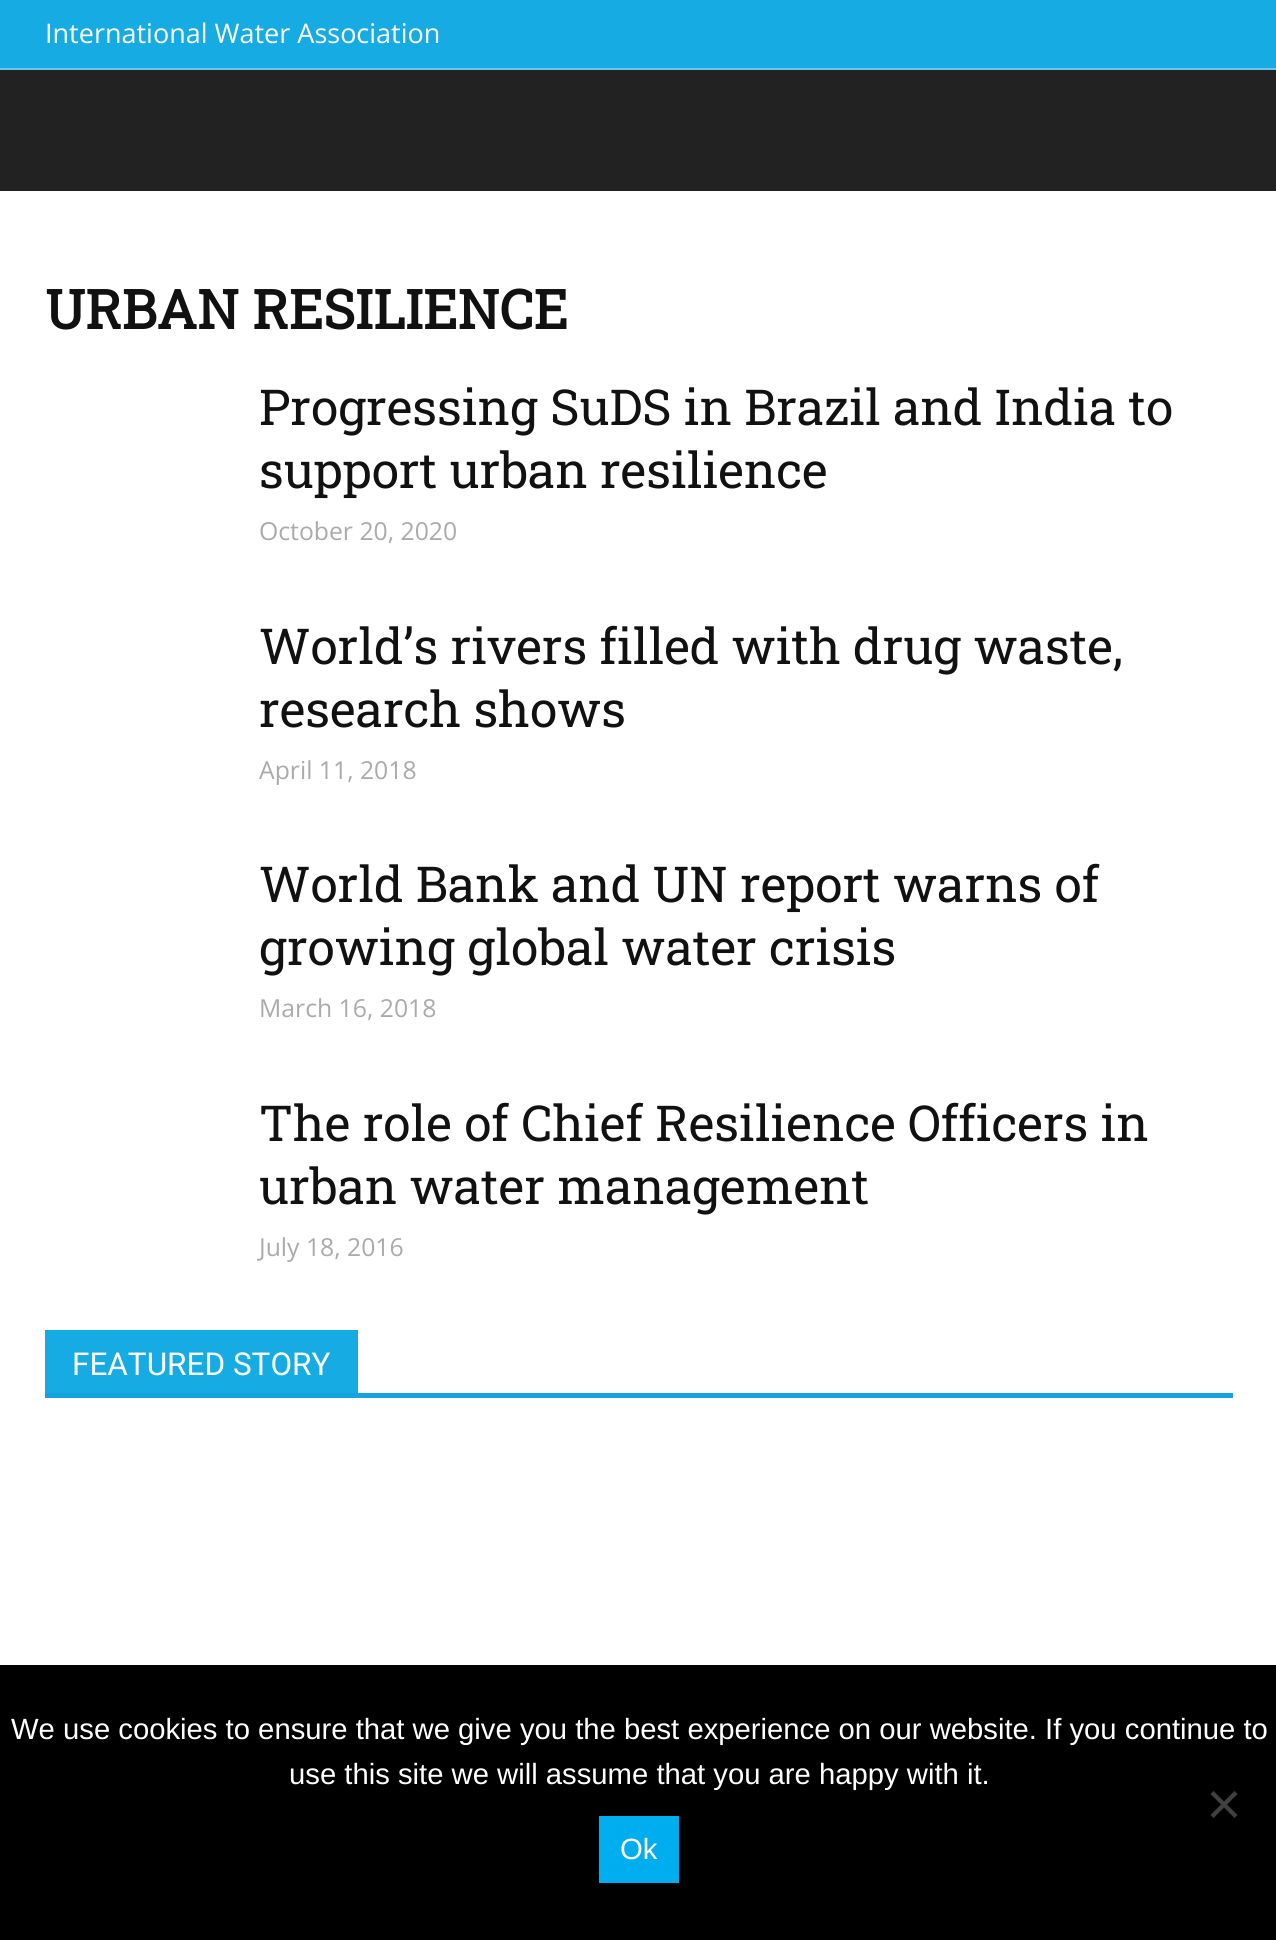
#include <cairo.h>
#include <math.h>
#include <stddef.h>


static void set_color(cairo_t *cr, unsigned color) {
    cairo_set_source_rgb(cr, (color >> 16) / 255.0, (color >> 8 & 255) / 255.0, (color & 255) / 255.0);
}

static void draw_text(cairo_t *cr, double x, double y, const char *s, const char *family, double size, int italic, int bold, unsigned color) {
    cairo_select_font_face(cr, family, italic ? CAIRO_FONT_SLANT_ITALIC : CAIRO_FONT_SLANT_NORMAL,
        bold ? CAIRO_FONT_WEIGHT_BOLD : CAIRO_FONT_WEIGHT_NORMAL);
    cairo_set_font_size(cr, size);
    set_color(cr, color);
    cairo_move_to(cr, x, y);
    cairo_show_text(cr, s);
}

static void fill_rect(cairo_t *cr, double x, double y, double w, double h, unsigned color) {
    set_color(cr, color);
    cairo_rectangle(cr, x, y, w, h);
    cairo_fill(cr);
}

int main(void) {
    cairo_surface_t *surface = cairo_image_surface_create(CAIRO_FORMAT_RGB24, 1276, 1940);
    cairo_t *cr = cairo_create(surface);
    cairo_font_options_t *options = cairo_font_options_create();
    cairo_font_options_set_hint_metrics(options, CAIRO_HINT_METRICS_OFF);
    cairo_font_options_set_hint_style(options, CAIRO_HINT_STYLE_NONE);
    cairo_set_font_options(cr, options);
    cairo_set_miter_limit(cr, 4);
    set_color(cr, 0xFFFFFF);
    cairo_paint(cr);
    fill_rect(cr, 0, 0, 1276, 68, 0x16ACE3);
    fill_rect(cr, 0, 68, 1276, 2, 0x6BC8EA);
    draw_text(cr, 45, 43, "International Water Association", "Open Sans", 27, 0, 0, 0xFFFFFF);
    fill_rect(cr, 0, 70, 1276, 121, 0x222222);
    draw_text(cr, 45, 329, "URBAN RESILIENCE", "Roboto Slab", 54, 0, 1, 0x111111);
    draw_text(cr, 259, 425, "Progressing SuDS in Brazil and India to", "Roboto Slab", 49.5, 0, 0, 0x111111);
    draw_text(cr, 259, 488, "support urban resilience", "Roboto Slab", 49.5, 0, 0, 0x111111);
    draw_text(cr, 259, 540, "October 20, 2020", "Open Sans", 24.75, 0, 0, 0xAAAAAA);
    draw_text(cr, 259, 664, "World’s rivers filled with drug waste,", "Roboto Slab", 49.5, 0, 0, 0x111111);
    draw_text(cr, 259, 727, "research shows", "Roboto Slab", 49.5, 0, 0, 0x111111);
    draw_text(cr, 259, 779, "April 11, 2018", "Open Sans", 24.75, 0, 0, 0xAAAAAA);
    draw_text(cr, 259, 902, "World Bank and UN report warns of", "Roboto Slab", 49.5, 0, 0, 0x111111);
    draw_text(cr, 259, 965, "growing global water crisis", "Roboto Slab", 49.5, 0, 0, 0x111111);
    draw_text(cr, 259, 1017, "March 16, 2018", "Open Sans", 24.75, 0, 0, 0xAAAAAA);
    draw_text(cr, 259, 1141, "The role of Chief Resilience Officers in", "Roboto Slab", 49.5, 0, 0, 0x111111);
    draw_text(cr, 259, 1204, "urban water management", "Roboto Slab", 49.5, 0, 0, 0x111111);
    draw_text(cr, 259, 1256, "July 18, 2016", "Open Sans", 24.75, 0, 0, 0xAAAAAA);
    fill_rect(cr, 45, 1393, 1188, 5, 0x14A3DF);
    fill_rect(cr, 45, 1330, 313, 63, 0x16ACE3);
    draw_text(cr, 72, 1375, "FEATURED STORY", "Roboto", 31.5, 0, 0, 0xFFFFFF);
    fill_rect(cr, 0, 1665, 1276, 275, 0x000000);
    draw_text(cr, 11, 1739, "We use cookies to ensure that we give you the best experience on our website. If you continue to", "Liberation Sans", 29.25, 0, 0, 0xFFFFFF);
    draw_text(cr, 289, 1784, "use this site we will assume that you are happy with it.", "Liberation Sans", 29.25, 0, 0, 0xFFFFFF);
    set_color(cr, 0x404040);
    cairo_new_path(cr);
    cairo_move_to(cr, 1234.5, 1791);
    cairo_line_to(cr, 1237.5, 1794);
    cairo_line_to(cr, 1213.5, 1818);
    cairo_line_to(cr, 1210.5, 1815);
    cairo_close_path(cr);
    cairo_fill(cr);
    cairo_new_path(cr);
    cairo_move_to(cr, 1210.5, 1794);
    cairo_line_to(cr, 1213.5, 1791);
    cairo_line_to(cr, 1237.5, 1815);
    cairo_line_to(cr, 1234.5, 1818);
    cairo_close_path(cr);
    cairo_fill(cr);
    fill_rect(cr, 599, 1816, 80, 67, 0x00AEEF);
    draw_text(cr, 620, 1859, "Ok", "Liberation Sans", 29.25, 0, 0, 0xFFFFFF);
    cairo_surface_write_to_png(surface, "output.png");
    cairo_font_options_destroy(options);
    cairo_destroy(cr);
    cairo_surface_destroy(surface);
    return 0;
}
